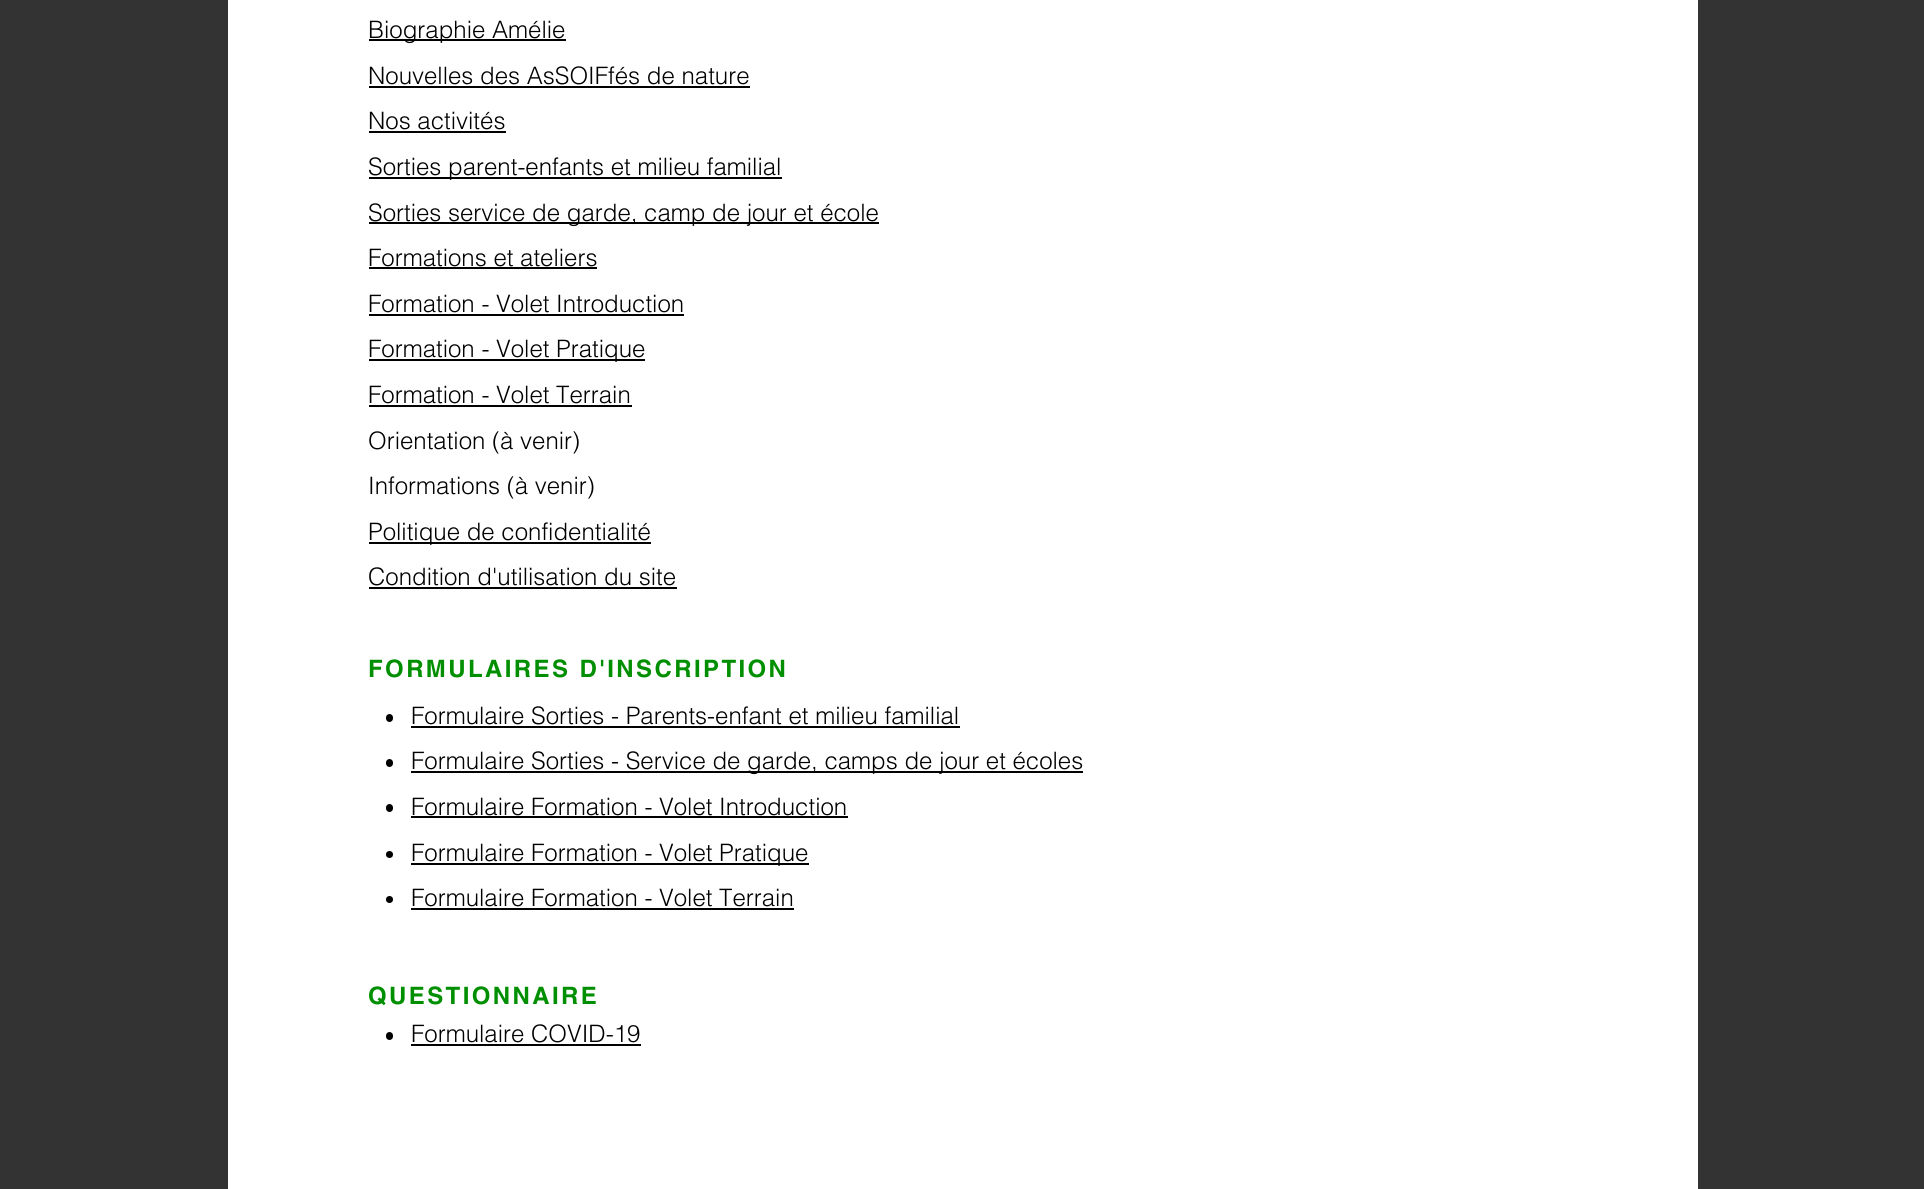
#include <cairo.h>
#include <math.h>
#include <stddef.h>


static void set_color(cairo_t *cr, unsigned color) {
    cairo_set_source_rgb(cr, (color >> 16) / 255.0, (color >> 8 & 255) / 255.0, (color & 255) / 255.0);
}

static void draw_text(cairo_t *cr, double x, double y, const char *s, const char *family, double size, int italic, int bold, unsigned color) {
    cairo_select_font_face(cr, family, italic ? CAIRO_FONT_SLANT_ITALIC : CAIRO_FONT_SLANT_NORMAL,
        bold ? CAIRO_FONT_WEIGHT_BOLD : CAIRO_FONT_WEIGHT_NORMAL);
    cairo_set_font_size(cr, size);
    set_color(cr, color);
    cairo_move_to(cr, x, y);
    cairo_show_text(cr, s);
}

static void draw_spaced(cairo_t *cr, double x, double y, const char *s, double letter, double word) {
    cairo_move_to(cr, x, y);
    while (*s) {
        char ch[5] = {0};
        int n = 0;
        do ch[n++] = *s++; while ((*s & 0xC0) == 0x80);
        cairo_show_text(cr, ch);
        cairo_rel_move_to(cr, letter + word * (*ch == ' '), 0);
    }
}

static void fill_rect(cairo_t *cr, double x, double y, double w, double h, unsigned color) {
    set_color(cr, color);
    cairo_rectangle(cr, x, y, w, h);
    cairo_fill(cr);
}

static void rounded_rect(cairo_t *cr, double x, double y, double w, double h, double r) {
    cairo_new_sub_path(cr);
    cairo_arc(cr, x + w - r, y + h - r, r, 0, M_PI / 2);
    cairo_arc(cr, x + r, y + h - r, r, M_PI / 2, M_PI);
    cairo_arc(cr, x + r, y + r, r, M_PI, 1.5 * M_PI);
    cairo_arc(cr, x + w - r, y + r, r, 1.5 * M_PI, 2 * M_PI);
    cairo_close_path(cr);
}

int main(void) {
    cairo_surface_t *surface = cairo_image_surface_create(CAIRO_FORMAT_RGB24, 1924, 1189);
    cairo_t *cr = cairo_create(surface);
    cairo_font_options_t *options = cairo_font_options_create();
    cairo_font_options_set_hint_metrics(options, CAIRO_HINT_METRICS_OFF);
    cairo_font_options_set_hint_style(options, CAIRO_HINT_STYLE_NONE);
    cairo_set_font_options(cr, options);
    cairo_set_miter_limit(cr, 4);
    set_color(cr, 0x333333);
    cairo_paint(cr);
    fill_rect(cr, 228, 0, 1470, 1189, 0xFFFFFF);
    fill_rect(cr, 369, 39, 197, 2, 0x000000);
    draw_text(cr, 368, 38, "Biographie Amélie", "helvetica Light", 24, 0, 0, 0x000000);
    draw_text(cr, 368, 84, "Nouvelles des AsSOIFfés de nature", "helvetica Light", 24, 0, 0, 0x000000);
    fill_rect(cr, 369, 86, 381, 2, 0x000000);
    draw_text(cr, 368, 129, "Nos activités", "helvetica Light", 24, 0, 0, 0x000000);
    fill_rect(cr, 369, 131, 137, 2, 0x000000);
    fill_rect(cr, 369, 177, 413, 2, 0x000000);
    draw_text(cr, 368, 175, "Sorties parent-enfants et milieu familial", "helvetica Light", 24, 0, 0, 0x000000);
    fill_rect(cr, 369, 222, 510, 2, 0x000000);
    draw_text(cr, 368, 221, "Sorties service de garde, camp de jour et école", "helvetica Light", 24, 0, 0, 0x000000);
    draw_text(cr, 368, 266, "Formations et ateliers", "helvetica Light", 24, 0, 0, 0x000000);
    fill_rect(cr, 369, 267, 228, 2, 0x000000);
    draw_text(cr, 368, 312, "Formation - Volet Introduction", "helvetica Light", 24, 0, 0, 0x000000);
    fill_rect(cr, 369, 314, 315, 2, 0x000000);
    fill_rect(cr, 369, 359, 276, 2, 0x000000);
    draw_text(cr, 368, 357, "Formation - Volet Pratique", "helvetica Light", 24, 0, 0, 0x000000);
    draw_text(cr, 368, 403, "Formation - Volet Terrain", "helvetica Light", 24, 0, 0, 0x000000);
    fill_rect(cr, 369, 405, 263, 2, 0x000000);
    draw_text(cr, 368, 449, "Orientation (à venir)", "helvetica Light", 24, 0, 0, 0x000000);
    draw_text(cr, 368, 494, "Informations (à venir)", "helvetica Light", 24, 0, 0, 0x000000);
    fill_rect(cr, 369, 542, 282, 2, 0x000000);
    draw_text(cr, 368, 540, "Politique de confidentialité", "helvetica Light", 24, 0, 0, 0x000000);
    draw_text(cr, 368, 585, "Condition d'utilisation du site", "helvetica Light", 24, 0, 0, 0x000000);
    fill_rect(cr, 369, 587, 308, 2, 0x000000);
    cairo_select_font_face(cr, "helvetica", CAIRO_FONT_SLANT_NORMAL, CAIRO_FONT_WEIGHT_BOLD);
    set_color(cr, 0x008F00);
    draw_spaced(cr, 368, 677, "FORMULAIRES D'INSCRIPTION", 2.4, 0);
    set_color(cr, 0x000000);
    rounded_rect(cr, 386, 714, 7, 8, 3.5);
    cairo_fill(cr);
    draw_text(cr, 411, 724, "Formulaire Sorties - Parents-enfant et milieu familial", "helvetica Light", 24, 0, 0, 0x000000);
    fill_rect(cr, 411, 726, 549, 2, 0x000000);
    rounded_rect(cr, 386, 759, 7, 8, 3.5);
    cairo_fill(cr);
    fill_rect(cr, 411, 771, 672, 2, 0x000000);
    draw_text(cr, 411, 769, "Formulaire Sorties - Service de garde, camps de jour et écoles", "helvetica Light", 24, 0, 0, 0x000000);
    rounded_rect(cr, 386, 804, 7, 8, 3.5);
    cairo_fill(cr);
    draw_text(cr, 411, 815, "Formulaire Formation - Volet Introduction", "helvetica Light", 24, 0, 0, 0x000000);
    fill_rect(cr, 411, 816, 437, 2, 0x000000);
    cairo_new_path(cr);
    cairo_arc(cr, 389.5, 854.5, 3.5, 0, 2 * M_PI);
    cairo_fill(cr);
    fill_rect(cr, 411, 863, 398, 2, 0x000000);
    draw_text(cr, 411, 861, "Formulaire Formation - Volet Pratique", "helvetica Light", 24, 0, 0, 0x000000);
    cairo_new_path(cr);
    cairo_arc(cr, 389.5, 899.5, 3.5, 0, 2 * M_PI);
    cairo_fill(cr);
    draw_text(cr, 411, 906, "Formulaire Formation - Volet Terrain", "helvetica Light", 24, 0, 0, 0x000000);
    fill_rect(cr, 411, 908, 383, 2, 0x000000);
    cairo_select_font_face(cr, "helvetica", CAIRO_FONT_SLANT_NORMAL, CAIRO_FONT_WEIGHT_BOLD);
    set_color(cr, 0x008F00);
    draw_spaced(cr, 368, 1004, "QUESTIONNAIRE", 2.4, 0);
    set_color(cr, 0x000000);
    rounded_rect(cr, 386, 1032, 7, 8, 3.5);
    cairo_fill(cr);
    draw_text(cr, 411, 1042, "Formulaire COVID-19", "helvetica Light", 24, 0, 0, 0x000000);
    fill_rect(cr, 411, 1044, 230, 2, 0x000000);
    cairo_surface_write_to_png(surface, "output.png");
    cairo_font_options_destroy(options);
    cairo_destroy(cr);
    cairo_surface_destroy(surface);
    return 0;
}
